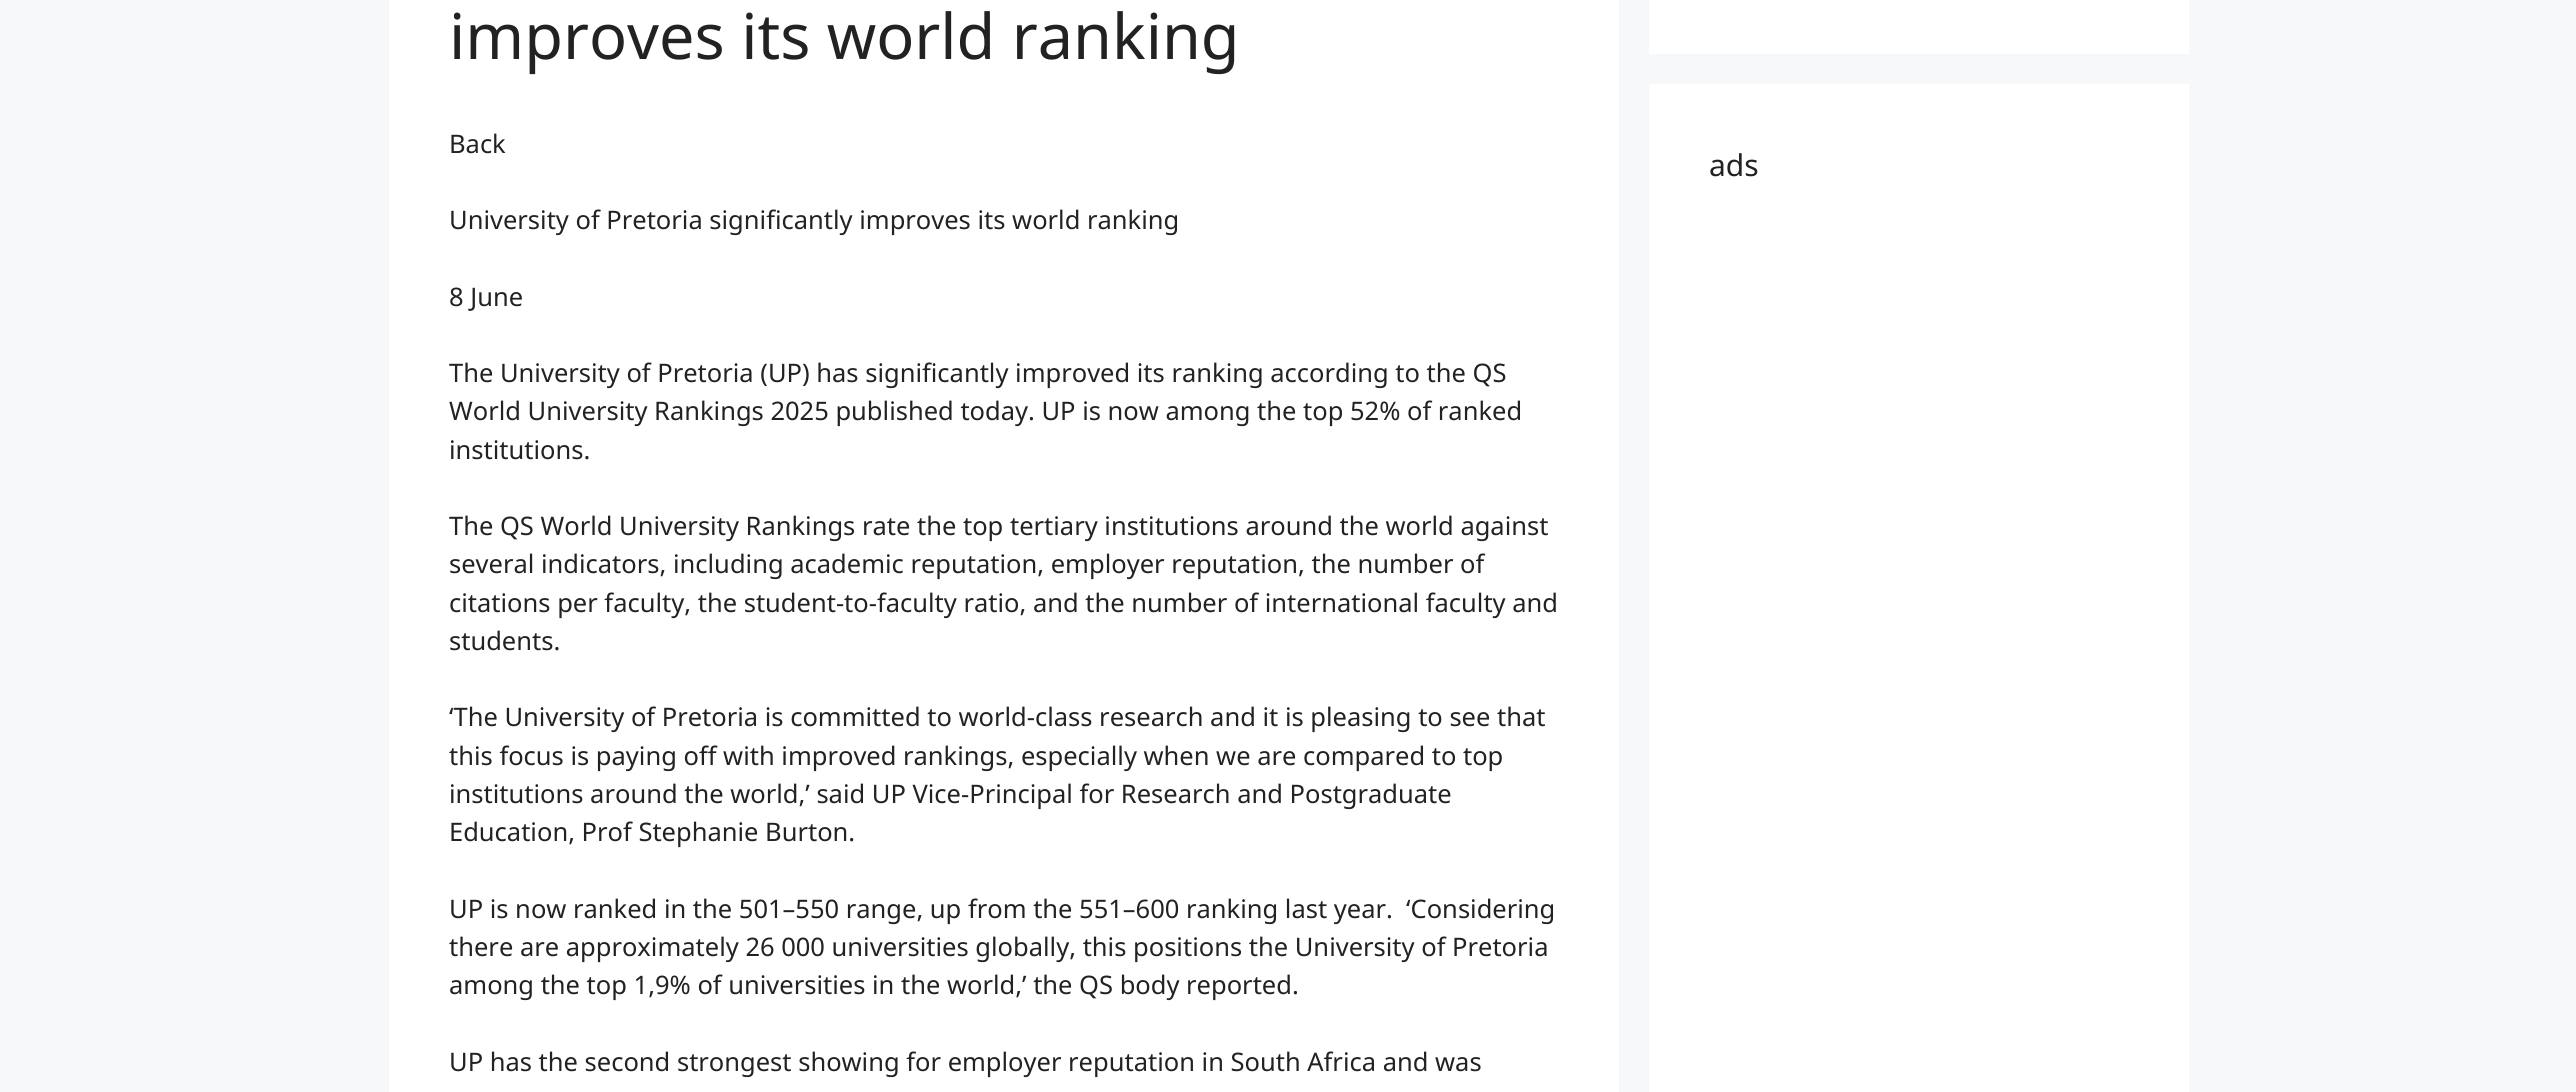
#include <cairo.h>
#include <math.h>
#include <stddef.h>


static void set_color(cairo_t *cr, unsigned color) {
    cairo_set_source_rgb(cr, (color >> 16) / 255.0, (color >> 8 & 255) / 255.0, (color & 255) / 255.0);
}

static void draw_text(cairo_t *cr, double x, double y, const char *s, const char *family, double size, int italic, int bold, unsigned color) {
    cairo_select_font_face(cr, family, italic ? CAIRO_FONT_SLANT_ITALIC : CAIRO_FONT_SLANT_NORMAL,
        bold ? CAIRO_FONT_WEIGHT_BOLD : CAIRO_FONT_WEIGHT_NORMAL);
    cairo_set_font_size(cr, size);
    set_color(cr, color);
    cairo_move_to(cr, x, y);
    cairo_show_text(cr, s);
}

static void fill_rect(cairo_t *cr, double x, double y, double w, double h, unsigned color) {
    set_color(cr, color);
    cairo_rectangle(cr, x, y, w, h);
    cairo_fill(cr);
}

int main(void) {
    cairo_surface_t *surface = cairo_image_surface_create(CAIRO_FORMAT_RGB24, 2576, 1092);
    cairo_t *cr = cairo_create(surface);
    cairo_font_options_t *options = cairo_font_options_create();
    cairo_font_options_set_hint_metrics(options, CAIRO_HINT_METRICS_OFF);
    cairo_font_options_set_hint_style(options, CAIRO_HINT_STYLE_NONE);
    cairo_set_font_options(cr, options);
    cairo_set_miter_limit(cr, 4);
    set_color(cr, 0xF7F8F9);
    cairo_paint(cr);
    fill_rect(cr, 389, 0, 1230, 1092, 0xFFFFFF);
    draw_text(cr, 449, 59, "improves its world ranking", "Noto Sans", 63, 0, 0, 0x222222);
    draw_text(cr, 449, 153, "Back", "Noto Sans", 25.5, 0, 0, 0x222222);
    draw_text(cr, 449, 229, "University of Pretoria significantly improves its world ranking", "Noto Sans", 25.5, 0, 0, 0x222222);
    draw_text(cr, 449, 306, "8 June", "Noto Sans", 25.5, 0, 0, 0x222222);
    draw_text(cr, 449, 382, "The University of Pretoria (UP) has significantly improved its ranking according to the QS", "Noto Sans", 25.5, 0, 0, 0x222222);
    draw_text(cr, 449, 420, "World University Rankings 2025 published today. UP is now among the top 52% of ranked", "Noto Sans", 25.5, 0, 0, 0x222222);
    draw_text(cr, 449, 459, "institutions.", "Noto Sans", 25.5, 0, 0, 0x222222);
    draw_text(cr, 449, 535, "The QS World University Rankings rate the top tertiary institutions around the world against", "Noto Sans", 25.5, 0, 0, 0x222222);
    draw_text(cr, 449, 573, "several indicators, including academic reputation, employer reputation, the number of", "Noto Sans", 25.5, 0, 0, 0x222222);
    draw_text(cr, 449, 612, "citations per faculty, the student-to-faculty ratio, and the number of international faculty and", "Noto Sans", 25.5, 0, 0, 0x222222);
    draw_text(cr, 449, 650, "students.", "Noto Sans", 25.5, 0, 0, 0x222222);
    draw_text(cr, 449, 726, "‘The University of Pretoria is committed to world-class research and it is pleasing to see that", "Noto Sans", 25.5, 0, 0, 0x222222);
    draw_text(cr, 449, 765, "this focus is paying off with improved rankings, especially when we are compared to top", "Noto Sans", 25.5, 0, 0, 0x222222);
    draw_text(cr, 449, 803, "institutions around the world,’ said UP Vice-Principal for Research and Postgraduate", "Noto Sans", 25.5, 0, 0, 0x222222);
    draw_text(cr, 449, 841, "Education, Prof Stephanie Burton.", "Noto Sans", 25.5, 0, 0, 0x222222);
    draw_text(cr, 449, 918, "UP is now ranked in the 501–550 range, up from the 551–600 ranking last year.  ‘Considering", "Noto Sans", 25.5, 0, 0, 0x222222);
    draw_text(cr, 449, 956, "there are approximately 26 000 universities globally, this positions the University of Pretoria", "Noto Sans", 25.5, 0, 0, 0x222222);
    draw_text(cr, 449, 994, "among the top 1,9% of universities in the world,’ the QS body reported.", "Noto Sans", 25.5, 0, 0, 0x222222);
    draw_text(cr, 449, 1071, "UP has the second strongest showing for employer reputation in South Africa and was", "Noto Sans", 25.5, 0, 0, 0x222222);
    fill_rect(cr, 1649, 0, 540, 54, 0xFFFFFF);
    fill_rect(cr, 1649, 84, 540, 1008, 0xFFFFFF);
    draw_text(cr, 1709, 176, "ads", "Noto Sans", 30, 0, 0, 0x222222);
    cairo_surface_write_to_png(surface, "output.png");
    cairo_font_options_destroy(options);
    cairo_destroy(cr);
    cairo_surface_destroy(surface);
    return 0;
}
